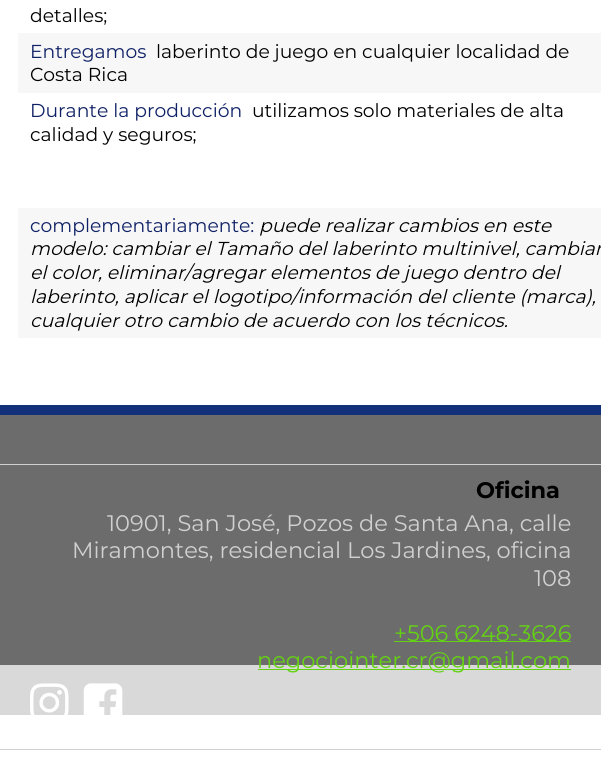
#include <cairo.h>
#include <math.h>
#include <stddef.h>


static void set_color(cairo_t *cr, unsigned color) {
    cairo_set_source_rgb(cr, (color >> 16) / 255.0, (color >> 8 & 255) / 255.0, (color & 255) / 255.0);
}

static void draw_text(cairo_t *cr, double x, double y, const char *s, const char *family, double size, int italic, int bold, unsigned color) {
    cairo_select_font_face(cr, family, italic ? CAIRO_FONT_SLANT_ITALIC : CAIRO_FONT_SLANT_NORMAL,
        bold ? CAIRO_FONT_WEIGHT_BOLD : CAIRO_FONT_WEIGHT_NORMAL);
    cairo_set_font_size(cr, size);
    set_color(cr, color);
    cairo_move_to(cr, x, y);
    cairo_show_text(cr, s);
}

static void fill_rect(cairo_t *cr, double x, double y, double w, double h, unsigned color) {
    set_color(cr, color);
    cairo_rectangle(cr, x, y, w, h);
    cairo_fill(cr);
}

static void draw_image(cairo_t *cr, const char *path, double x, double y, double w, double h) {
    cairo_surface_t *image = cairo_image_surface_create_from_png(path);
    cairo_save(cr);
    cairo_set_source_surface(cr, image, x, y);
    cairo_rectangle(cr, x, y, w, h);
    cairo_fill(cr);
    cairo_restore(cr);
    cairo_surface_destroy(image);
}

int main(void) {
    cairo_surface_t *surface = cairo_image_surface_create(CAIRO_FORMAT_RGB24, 601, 759);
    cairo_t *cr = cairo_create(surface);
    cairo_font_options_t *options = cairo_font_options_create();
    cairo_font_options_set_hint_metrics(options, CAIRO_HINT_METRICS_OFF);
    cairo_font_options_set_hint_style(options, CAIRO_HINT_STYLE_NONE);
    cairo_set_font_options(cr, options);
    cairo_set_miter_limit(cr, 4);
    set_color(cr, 0xFFFFFF);
    cairo_paint(cr);
    draw_text(cr, 30, 22, "detalles;", "Montserrat", 18.75, 0, 0, 0x000000);
    fill_rect(cr, 18, 33, 583, 60, 0xF7F7F7);
    draw_text(cr, 30, 58, "Entregamos", "Montserrat", 18.75, 0, 0, 0x0F2166);
    draw_text(cr, 156, 58, "laberinto de juego en cualquier localidad de", "Montserrat", 18.75, 0, 0, 0x000000);
    draw_text(cr, 30, 81, "Costa Rica", "Montserrat", 18.75, 0, 0, 0x000000);
    draw_text(cr, 30, 117, "Durante la producción", "Montserrat", 18.75, 0, 0, 0x0F2166);
    draw_text(cr, 252, 117, "utilizamos solo materiales de alta", "Montserrat", 18.75, 0, 0, 0x000000);
    draw_text(cr, 30, 141, "calidad y seguros;", "Montserrat", 18.75, 0, 0, 0x000000);
    fill_rect(cr, 18, 208, 583, 130, 0xF7F7F7);
    draw_text(cr, 30, 232, "complementariamente:", "Montserrat", 18.75, 0, 0, 0x0F2166);
    draw_text(cr, 259, 232, "puede realizar cambios en este", "Montserrat", 18.75, 1, 0, 0x000000);
    draw_text(cr, 30, 255, "modelo: cambiar el Tamaño del laberinto multinivel, cambiar", "Montserrat", 18.75, 1, 0, 0x000000);
    draw_text(cr, 30, 279, "el color, eliminar/agregar elementos de juego dentro del", "Montserrat", 18.75, 1, 0, 0x000000);
    draw_text(cr, 30, 303, "laberinto, aplicar el logotipo/información del cliente (marca),", "Montserrat", 18.75, 1, 0, 0x000000);
    draw_text(cr, 30, 327, "cualquier otro cambio de acuerdo con los técnicos.", "Montserrat", 18.75, 1, 0, 0x000000);
    fill_rect(cr, 0, 415, 601, 250, 0x6C6C6C);
    fill_rect(cr, 0, 405, 601, 10, 0x12317A);
    fill_rect(cr, 0, 464, 601, 1, 0xD0D0D0);
    fill_rect(cr, 0, 749, 601, 1, 0xD0D0D0);
    draw_text(cr, 476, 498, "Oficina", "Montserrat", 22.5, 0, 1, 0x000000);
    draw_text(cr, 107, 531, "10901, San José, Pozos de Santa Ana, calle", "Montserrat", 22.5, 0, 0, 0xD0D0D0);
    draw_text(cr, 72, 558, "Miramontes, residencial Los Jardines, oficina", "Montserrat", 22.5, 0, 0, 0xD0D0D0);
    draw_text(cr, 534, 586, "108", "Montserrat", 22.5, 0, 0, 0xD0D0D0);
    fill_rect(cr, 394, 641, 177, 1, 0x64D214);
    draw_text(cr, 394, 641, "+506 6248-3626", "Montserrat", 22.5, 0, 0, 0x64D214);
    fill_rect(cr, 0, 665, 601, 50, 0xD9D9D9);
    fill_rect(cr, 258, 669, 313, 1, 0x64D214);
    draw_text(cr, 257, 668, "negociointer.cr@gmail.com", "Montserrat", 22.5, 0, 0, 0x64D214);
    draw_image(cr, "assets/img1.png", 30, 683, 39, 32);
    draw_image(cr, "assets/img2.png", 83, 683, 40, 32);
    cairo_surface_write_to_png(surface, "output.png");
    cairo_font_options_destroy(options);
    cairo_destroy(cr);
    cairo_surface_destroy(surface);
    return 0;
}
